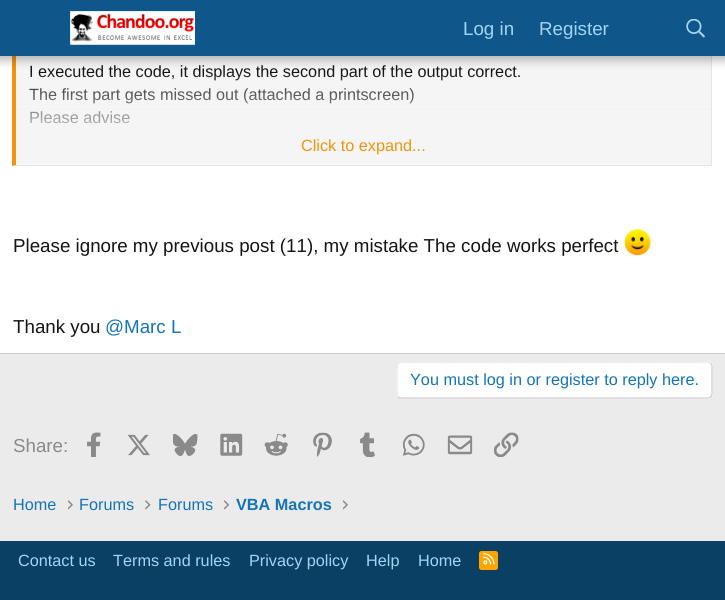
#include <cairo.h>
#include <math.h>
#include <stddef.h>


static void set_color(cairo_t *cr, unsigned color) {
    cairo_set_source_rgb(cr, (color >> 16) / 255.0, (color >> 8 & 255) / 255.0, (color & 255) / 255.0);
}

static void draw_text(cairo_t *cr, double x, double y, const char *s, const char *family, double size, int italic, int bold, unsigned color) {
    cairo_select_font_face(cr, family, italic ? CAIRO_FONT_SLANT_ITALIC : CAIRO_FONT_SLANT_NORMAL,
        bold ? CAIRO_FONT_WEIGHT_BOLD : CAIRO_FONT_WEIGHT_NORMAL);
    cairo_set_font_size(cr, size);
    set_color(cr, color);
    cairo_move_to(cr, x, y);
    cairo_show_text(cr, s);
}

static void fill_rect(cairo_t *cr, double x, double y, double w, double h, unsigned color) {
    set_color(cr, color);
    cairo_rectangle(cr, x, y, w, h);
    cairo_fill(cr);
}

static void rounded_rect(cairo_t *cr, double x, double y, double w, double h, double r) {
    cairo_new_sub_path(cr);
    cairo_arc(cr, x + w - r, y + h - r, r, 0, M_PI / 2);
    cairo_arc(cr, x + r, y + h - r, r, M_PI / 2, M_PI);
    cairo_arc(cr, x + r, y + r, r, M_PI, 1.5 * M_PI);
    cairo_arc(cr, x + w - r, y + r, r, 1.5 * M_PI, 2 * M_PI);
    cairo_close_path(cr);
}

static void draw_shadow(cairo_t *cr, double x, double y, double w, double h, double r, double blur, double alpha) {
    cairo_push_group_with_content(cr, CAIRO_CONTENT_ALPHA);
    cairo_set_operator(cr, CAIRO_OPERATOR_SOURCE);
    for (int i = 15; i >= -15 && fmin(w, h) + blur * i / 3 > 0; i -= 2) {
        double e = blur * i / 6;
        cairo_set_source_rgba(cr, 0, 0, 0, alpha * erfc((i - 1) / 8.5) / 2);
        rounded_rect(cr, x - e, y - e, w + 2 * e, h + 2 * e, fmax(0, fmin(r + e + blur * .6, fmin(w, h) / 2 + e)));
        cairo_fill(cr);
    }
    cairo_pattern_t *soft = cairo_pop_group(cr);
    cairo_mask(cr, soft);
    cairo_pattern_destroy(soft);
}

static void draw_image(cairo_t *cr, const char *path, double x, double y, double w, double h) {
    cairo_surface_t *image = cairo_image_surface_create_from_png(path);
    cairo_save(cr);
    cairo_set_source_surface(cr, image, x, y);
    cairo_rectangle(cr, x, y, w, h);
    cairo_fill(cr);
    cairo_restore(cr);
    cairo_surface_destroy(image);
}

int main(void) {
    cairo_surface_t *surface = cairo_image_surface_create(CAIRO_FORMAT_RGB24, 725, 600);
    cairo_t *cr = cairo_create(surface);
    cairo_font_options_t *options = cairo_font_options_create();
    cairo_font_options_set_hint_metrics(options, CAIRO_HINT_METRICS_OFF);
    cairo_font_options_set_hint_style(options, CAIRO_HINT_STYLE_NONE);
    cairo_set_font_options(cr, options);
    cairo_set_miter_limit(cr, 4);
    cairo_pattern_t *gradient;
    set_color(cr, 0xEBEBEB);
    cairo_paint(cr);
    fill_rect(cr, 0, 56, 725, 297, 0xFFFFFF);
    fill_rect(cr, 16, 56, 695, 90, 0xF5F5F5);
    fill_rect(cr, 711, 56, 1, 110, 0xE5E5E5);
    cairo_new_path(cr);
    cairo_move_to(cr, 712, 166);
    cairo_line_to(cr, 12, 166);
    cairo_line_to(cr, 16, 165);
    cairo_line_to(cr, 711, 165);
    cairo_close_path(cr);
    cairo_fill(cr);
    set_color(cr, 0xF2930D);
    cairo_new_path(cr);
    cairo_move_to(cr, 12, 166);
    cairo_line_to(cr, 12, -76);
    cairo_line_to(cr, 16, -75);
    cairo_line_to(cr, 16, 165);
    cairo_close_path(cr);
    cairo_fill(cr);
    draw_text(cr, 29, 77, "I executed the code, it displays the second part of the output correct.", "Liberation Sans", 16.25, 0, 0, 0x141414);
    draw_text(cr, 29, 100, "The first part gets missed out (attached a printscreen)", "Liberation Sans", 16.25, 0, 0, 0x141414);
    draw_text(cr, 29, 123, "Please advise", "Liberation Sans", 16.25, 0, 0, 0x141414);
    gradient = cairo_pattern_create_linear(364, 71, 364, 165);
    cairo_pattern_add_color_stop_rgba(gradient, 0, 0.961, 0.961, 0.961, 0);
    cairo_pattern_add_color_stop_rgba(gradient, 0.8, 0.961, 0.961, 0.961, 1);
    cairo_set_source(cr, gradient);
    cairo_pattern_destroy(gradient);
    cairo_rectangle(cr, 16, 73, 695, 92);
    cairo_fill(cr);
    set_color(cr, 0x000000);
    draw_shadow(cr, -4, -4, 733, 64, 0, 5, 0.3);
    fill_rect(cr, 0, 0, 725, 56, 0x0F578A);
    draw_image(cr, "assets/img1.png", 70, 11, 125, 34);
    draw_text(cr, 463, 35, "Log in", "Liberation Sans", 18.75, 0, 0, 0xA3D4F5);
    draw_text(cr, 539, 35, "Register", "Liberation Sans", 18.75, 0, 0, 0xA3D4F5);
    draw_image(cr, "assets/img2.png", 686, 19, 19, 19);
    fill_rect(cr, 0, 353, 725, 1, 0xCCCCCC);
    draw_text(cr, 301, 151, "Click to expand...", "Liberation Sans", 16.25, 0, 0, 0xF2930D);
    draw_text(cr, 13, 252, "Please ignore my previous post (11), my mistake The code works perfect", "Liberation Sans", 18.75, 0, 0, 0x141414);
    draw_image(cr, "assets/img3.png", 624, 229, 27, 27);
    draw_text(cr, 13, 333, "Thank you", "Liberation Sans", 18.75, 0, 0, 0x141414);
    draw_text(cr, 105, 333, "@Marc L", "Liberation Sans", 18.75, 0, 0, 0x1474B8);
    set_color(cr, 0xFFFFFF);
    rounded_rect(cr, 396, 361, 317, 38, 5);
    cairo_fill(cr);
    cairo_new_path(cr);
    cairo_move_to(cr, 710.5, 363);
    cairo_curve_to(cr, 711.5, 364, 712, 365, 712, 366);
    cairo_line_to(cr, 712, 394);
    cairo_curve_to(cr, 712, 395, 711.5, 396, 710.5, 397);
    cairo_curve_to(cr, 710, 397.5, 708.5, 398, 707.5, 398);
    cairo_line_to(cr, 401, 398);
    cairo_curve_to(cr, 400, 398, 399, 397.5, 398, 397);
    set_color(cr, 0xC9C9C9);
    cairo_set_line_width(cr, 1.2);
    cairo_stroke(cr);
    cairo_new_path(cr);
    cairo_move_to(cr, 398, 397);
    cairo_curve_to(cr, 397.5, 396, 397, 395, 397, 394);
    cairo_line_to(cr, 397, 366);
    cairo_curve_to(cr, 397, 365, 397.5, 364, 398, 363);
    cairo_curve_to(cr, 399, 362.5, 400, 362, 401, 362);
    cairo_line_to(cr, 707.5, 362);
    cairo_curve_to(cr, 708.5, 362, 710, 362.5, 710.5, 363);
    set_color(cr, 0xE3E3E3);
    cairo_stroke(cr);
    draw_text(cr, 410, 385, "You must log in or register to reply here.", "Liberation Sans", 16.25, 0, 0, 0x1474B8);
    draw_text(cr, 13, 452, "Share:", "Liberation Sans", 18.75, 0, 0, 0x8A8A8A);
    draw_image(cr, "assets/img4.png", 87, 432, 14, 25);
    draw_image(cr, "assets/img5.png", 127, 434, 23, 22);
    draw_image(cr, "assets/img6.png", 173, 433, 25, 24);
    draw_image(cr, "assets/img7.png", 220, 433, 23, 23);
    draw_image(cr, "assets/img8.png", 264, 433, 24, 23);
    draw_image(cr, "assets/img9.png", 313, 432, 19, 25);
    draw_image(cr, "assets/img10.png", 360, 432, 15, 25);
    draw_image(cr, "assets/img11.png", 402, 433, 23, 23);
    draw_image(cr, "assets/img12.png", 447, 435, 26, 20);
    draw_image(cr, "assets/img13.png", 494, 432, 25, 25);
    draw_text(cr, 13, 510, "Home", "Liberation Sans", 16.25, 0, 0, 0x1474B8);
    draw_image(cr, "assets/img14.png", 68, 500, 5, 10);
    draw_text(cr, 79, 510, "Forums", "Liberation Sans", 16.25, 0, 0, 0x1474B8);
    draw_image(cr, "assets/img15.png", 145, 500, 6, 10);
    draw_text(cr, 158, 510, "Forums", "Liberation Sans", 16.25, 0, 0, 0x1474B8);
    draw_image(cr, "assets/img16.png", 224, 500, 5, 10);
    draw_text(cr, 236, 510, "VBA Macros", "Liberation Sans", 16.25, 0, 1, 0x1474B8);
    draw_image(cr, "assets/img14.png", 343, 500, 5, 10);
    fill_rect(cr, 0, 541, 725, 59, 0x0B4065);
    draw_text(cr, 18, 566, "Contact us", "Liberation Sans", 16.25, 0, 0, 0xA3D4F5);
    draw_text(cr, 113, 566, "Terms and rules", "Liberation Sans", 16.25, 0, 0, 0xA3D4F5);
    draw_text(cr, 249, 566, "Privacy policy", "Liberation Sans", 16.25, 0, 0, 0xA3D4F5);
    draw_text(cr, 366, 566, "Help", "Liberation Sans", 16.25, 0, 0, 0xA3D4F5);
    draw_text(cr, 418, 566, "Home", "Liberation Sans", 16.25, 0, 0, 0xA3D4F5);
    set_color(cr, 0xFFA500);
    rounded_rect(cr, 479, 551, 19, 19, 2.5);
    cairo_fill(cr);
    draw_image(cr, "assets/img17.png", 483, 553, 12, 12);
    cairo_surface_write_to_png(surface, "output.png");
    cairo_font_options_destroy(options);
    cairo_destroy(cr);
    cairo_surface_destroy(surface);
    return 0;
}
